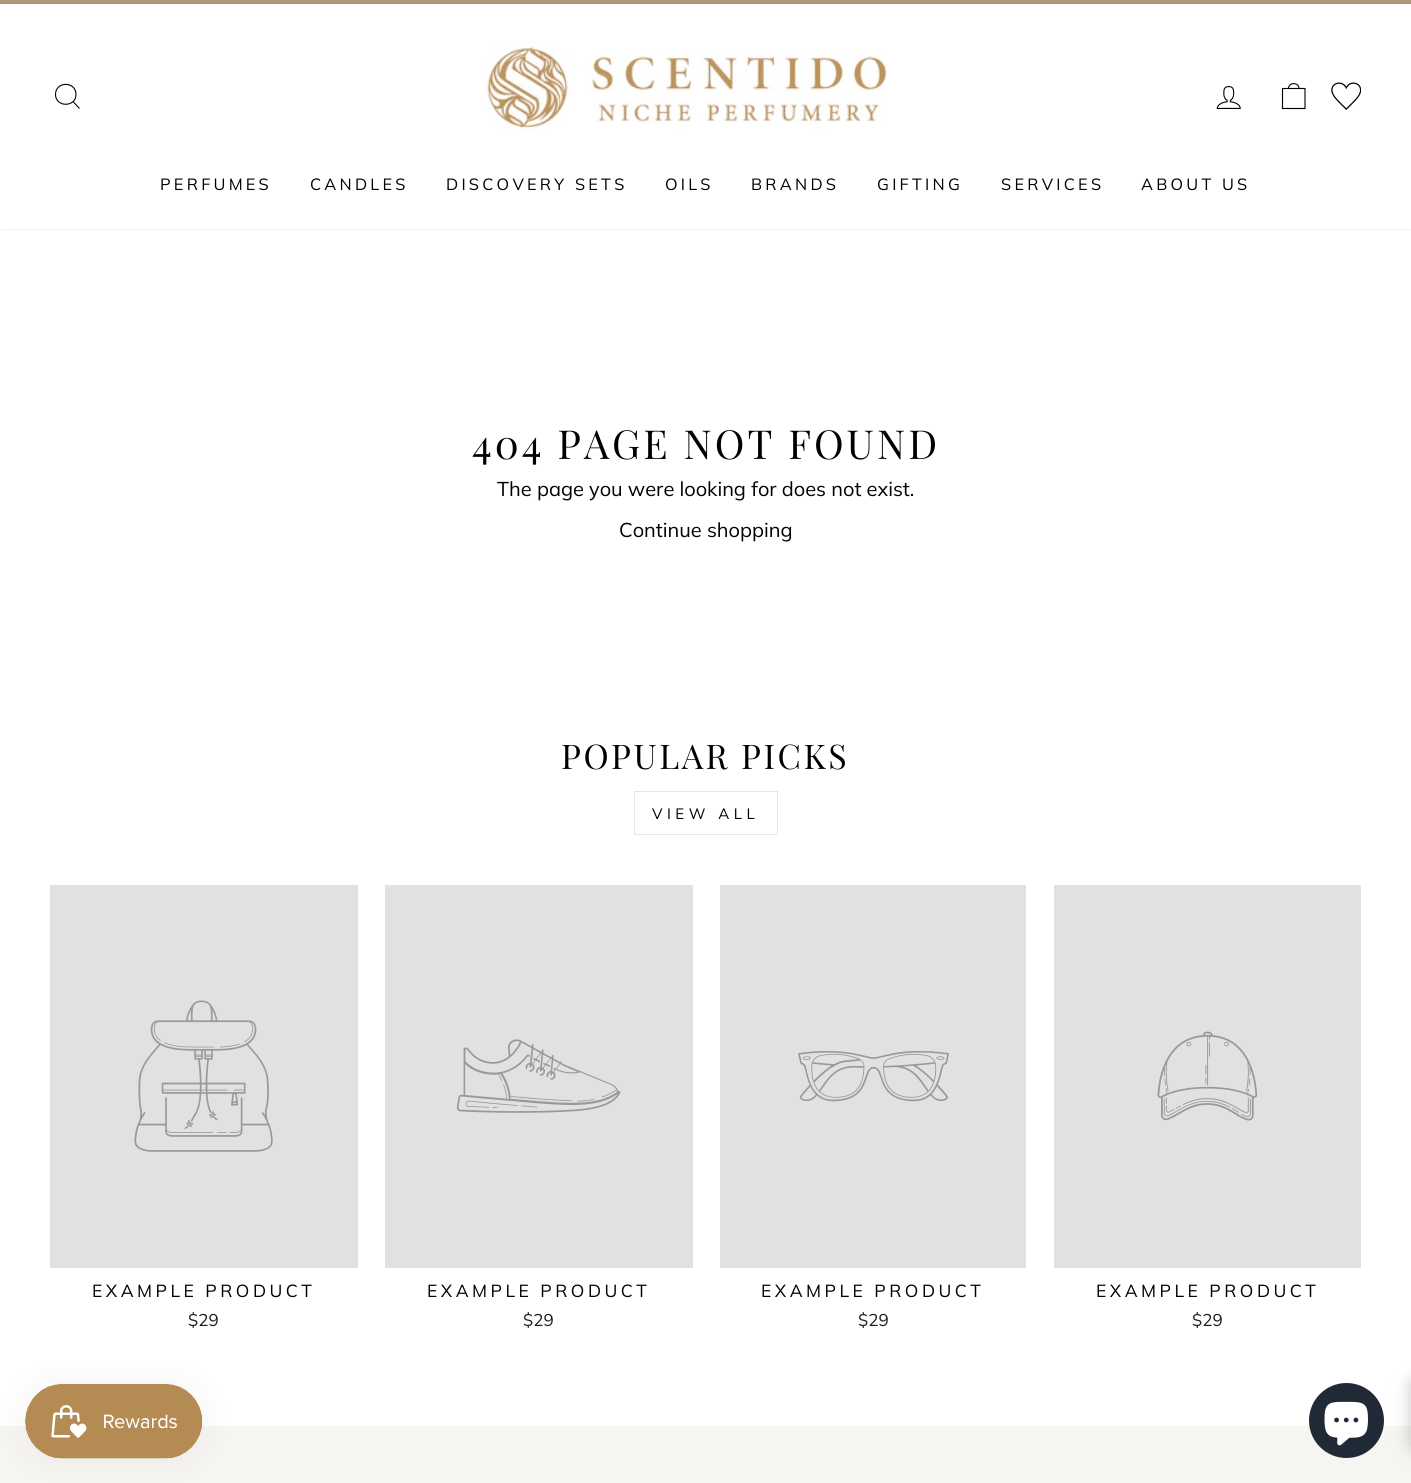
#include <cairo.h>
#include <math.h>
#include <stddef.h>


static void set_color(cairo_t *cr, unsigned color) {
    cairo_set_source_rgb(cr, (color >> 16) / 255.0, (color >> 8 & 255) / 255.0, (color & 255) / 255.0);
}

static void draw_text(cairo_t *cr, double x, double y, const char *s, const char *family, double size, int italic, int bold, unsigned color) {
    cairo_select_font_face(cr, family, italic ? CAIRO_FONT_SLANT_ITALIC : CAIRO_FONT_SLANT_NORMAL,
        bold ? CAIRO_FONT_WEIGHT_BOLD : CAIRO_FONT_WEIGHT_NORMAL);
    cairo_set_font_size(cr, size);
    set_color(cr, color);
    cairo_move_to(cr, x, y);
    cairo_show_text(cr, s);
}

static void draw_spaced(cairo_t *cr, double x, double y, const char *s, double letter, double word) {
    cairo_move_to(cr, x, y);
    while (*s) {
        char ch[5] = {0};
        int n = 0;
        do ch[n++] = *s++; while ((*s & 0xC0) == 0x80);
        cairo_show_text(cr, ch);
        cairo_rel_move_to(cr, letter + word * (*ch == ' '), 0);
    }
}

static void fill_rect(cairo_t *cr, double x, double y, double w, double h, unsigned color) {
    set_color(cr, color);
    cairo_rectangle(cr, x, y, w, h);
    cairo_fill(cr);
}

static void rounded_rect(cairo_t *cr, double x, double y, double w, double h, double r) {
    cairo_new_sub_path(cr);
    cairo_arc(cr, x + w - r, y + h - r, r, 0, M_PI / 2);
    cairo_arc(cr, x + r, y + h - r, r, M_PI / 2, M_PI);
    cairo_arc(cr, x + r, y + r, r, M_PI, 1.5 * M_PI);
    cairo_arc(cr, x + w - r, y + r, r, 1.5 * M_PI, 2 * M_PI);
    cairo_close_path(cr);
}

static void draw_shadow(cairo_t *cr, double x, double y, double w, double h, double r, double blur, double alpha) {
    cairo_push_group_with_content(cr, CAIRO_CONTENT_ALPHA);
    cairo_set_operator(cr, CAIRO_OPERATOR_SOURCE);
    for (int i = 15; i >= -15 && fmin(w, h) + blur * i / 3 > 0; i -= 2) {
        double e = blur * i / 6;
        cairo_set_source_rgba(cr, 0, 0, 0, alpha * erfc((i - 1) / 8.5) / 2);
        rounded_rect(cr, x - e, y - e, w + 2 * e, h + 2 * e, fmax(0, fmin(r + e + blur * .6, fmin(w, h) / 2 + e)));
        cairo_fill(cr);
    }
    cairo_pattern_t *soft = cairo_pop_group(cr);
    cairo_mask(cr, soft);
    cairo_pattern_destroy(soft);
}

static void draw_image(cairo_t *cr, const char *path, double x, double y, double w, double h) {
    cairo_surface_t *image = cairo_image_surface_create_from_png(path);
    cairo_save(cr);
    cairo_set_source_surface(cr, image, x, y);
    cairo_rectangle(cr, x, y, w, h);
    cairo_fill(cr);
    cairo_restore(cr);
    cairo_surface_destroy(image);
}

int main(void) {
    cairo_surface_t *surface = cairo_image_surface_create(CAIRO_FORMAT_RGB24, 1411, 1483);
    cairo_t *cr = cairo_create(surface);
    cairo_font_options_t *options = cairo_font_options_create();
    cairo_font_options_set_hint_metrics(options, CAIRO_HINT_METRICS_OFF);
    cairo_font_options_set_hint_style(options, CAIRO_HINT_STYLE_NONE);
    cairo_set_font_options(cr, options);
    cairo_set_miter_limit(cr, 4);
    set_color(cr, 0xFFFFFF);
    cairo_paint(cr);
    fill_rect(cr, 0, 0, 1411, 4, 0xB09978);
    set_color(cr, 0x000000);
    draw_shadow(cr, 0, 4, 1411, 225, 0, 0.5, 0.2);
    fill_rect(cr, 0, 4, 1411, 225, 0xFFFFFF);
    cairo_new_path(cr);
    cairo_move_to(cr, 76, 94.5);
    cairo_curve_to(cr, 76, 107.5, 55.5, 107.5, 55.5, 94.5);
    cairo_curve_to(cr, 55.5, 81, 76, 81, 76, 94.5);
    cairo_close_path(cr);
    cairo_move_to(cr, 79.5, 108.5);
    cairo_line_to(cr, 73, 101.5);
    set_color(cr, 0x000000);
    cairo_set_line_width(cr, 1.1);
    cairo_stroke(cr);
    draw_image(cr, "assets/img1.png", 485, 42, 402, 90);
    draw_image(cr, "assets/img2.png", 1216, 86, 25, 23);
    cairo_new_path(cr);
    cairo_move_to(cr, 1282.5, 88.5);
    cairo_line_to(cr, 1305, 88.5);
    cairo_line_to(cr, 1305, 108.5);
    cairo_line_to(cr, 1282.5, 108.5);
    cairo_close_path(cr);
    cairo_move_to(cr, 1288.5, 88.5);
    cairo_curve_to(cr, 1288.5, 82, 1299, 82, 1299, 88.5);
    cairo_stroke(cr);
    draw_image(cr, "assets/img3.png", 1331, 82, 30, 28);
    cairo_select_font_face(cr, "Muli", CAIRO_FONT_SLANT_NORMAL, CAIRO_FONT_WEIGHT_NORMAL);
    cairo_set_font_size(cr, 16.25);
    draw_spaced(cr, 160, 190, "PERFUMES", 3.25, 0);
    draw_spaced(cr, 310, 190, "CANDLES", 3.25, 0);
    draw_spaced(cr, 446, 190, "DISCOVERY SETS", 3.25, 0);
    draw_spaced(cr, 665, 190, "OILS", 3.25, 0);
    draw_spaced(cr, 751, 190, "BRANDS", 3.25, 0);
    draw_spaced(cr, 877, 190, "GIFTING", 3.25, 0);
    draw_spaced(cr, 1001, 190, "SERVICES", 3.25, 0);
    draw_spaced(cr, 1141, 190, "ABOUT US", 3.25, 0);
    cairo_select_font_face(cr, "Playfair Display", CAIRO_FONT_SLANT_NORMAL, CAIRO_FONT_WEIGHT_NORMAL);
    cairo_set_font_size(cr, 40);
    draw_spaced(cr, 472, 459, "404 PAGE NOT FOUND", 3, 0);
    draw_text(cr, 497, 496, "The page you were looking for does not exist.", "Muli", 20, 0, 0, 0x000000);
    draw_text(cr, 619, 537, "Continue shopping", "Muli", 20, 0, 0, 0x000000);
    cairo_select_font_face(cr, "Playfair Display", CAIRO_FONT_SLANT_NORMAL, CAIRO_FONT_WEIGHT_NORMAL);
    cairo_set_font_size(cr, 34);
    draw_spaced(cr, 561, 769, "POPULAR PICKS", 2.5, 0);
    cairo_rectangle(cr, 634.5, 791.5, 143, 43);
    set_color(cr, 0xE8E8E1);
    cairo_set_line_width(cr, 1);
    cairo_stroke(cr);
    cairo_select_font_face(cr, "Muli", CAIRO_FONT_SLANT_NORMAL, CAIRO_FONT_WEIGHT_NORMAL);
    cairo_set_font_size(cr, 15);
    set_color(cr, 0x000000);
    draw_spaced(cr, 652, 819, "VIEW ALL", 4.5, 0);
    fill_rect(cr, 50, 885, 308, 383, 0xE1E1E1);
    draw_image(cr, "assets/img4.png", 134, 1000, 139, 152);
    cairo_set_font_size(cr, 17.5);
    set_color(cr, 0x000000);
    draw_spaced(cr, 92, 1297, "EXAMPLE PRODUCT", 3.5, 0);
    draw_text(cr, 188, 1326, "$29", "Muli", 17, 0, 0, 0x1C1D1D);
    fill_rect(cr, 385, 885, 308, 383, 0xE1E1E1);
    draw_image(cr, "assets/img5.png", 456, 1039, 165, 74);
    cairo_set_font_size(cr, 17.5);
    set_color(cr, 0x000000);
    draw_spaced(cr, 427, 1297, "EXAMPLE PRODUCT", 3.5, 0);
    draw_text(cr, 523, 1326, "$29", "Muli", 17, 0, 0, 0x1C1D1D);
    fill_rect(cr, 720, 885, 306, 383, 0xE1E1E1);
    draw_image(cr, "assets/img6.png", 798, 1051, 151, 51);
    cairo_set_font_size(cr, 17.5);
    set_color(cr, 0x000000);
    draw_spaced(cr, 761, 1297, "EXAMPLE PRODUCT", 3.5, 0);
    draw_text(cr, 858, 1326, "$29", "Muli", 17, 0, 0, 0x1C1D1D);
    fill_rect(cr, 1054, 885, 307, 383, 0xE1E1E1);
    draw_image(cr, "assets/img7.png", 1157, 1031, 101, 90);
    cairo_set_font_size(cr, 17.5);
    set_color(cr, 0x000000);
    draw_spaced(cr, 1096, 1297, "EXAMPLE PRODUCT", 3.5, 0);
    draw_text(cr, 1192, 1326, "$29", "Muli", 17, 0, 0, 0x1C1D1D);
    fill_rect(cr, 0, 1426, 1411, 57, 0xF7F5F1);
    set_color(cr, 0x000000);
    draw_shadow(cr, 25, 1384, 178, 75, 37.5, 15.5, 0.05);
    draw_image(cr, "assets/img8.png", 25, 1384, 178, 75);
    set_color(cr, 0x202A36);
    cairo_arc(cr, 1346.5, 1420.5, 37.5, 0, 2 * M_PI);
    cairo_fill(cr);
    draw_image(cr, "assets/img9.png", 1324, 1401, 44, 45);
    set_color(cr, 0x757575);
    draw_shadow(cr, 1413, 1384, 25, 62, 0, 9, 0.5);
    cairo_surface_write_to_png(surface, "output.png");
    cairo_font_options_destroy(options);
    cairo_destroy(cr);
    cairo_surface_destroy(surface);
    return 0;
}
